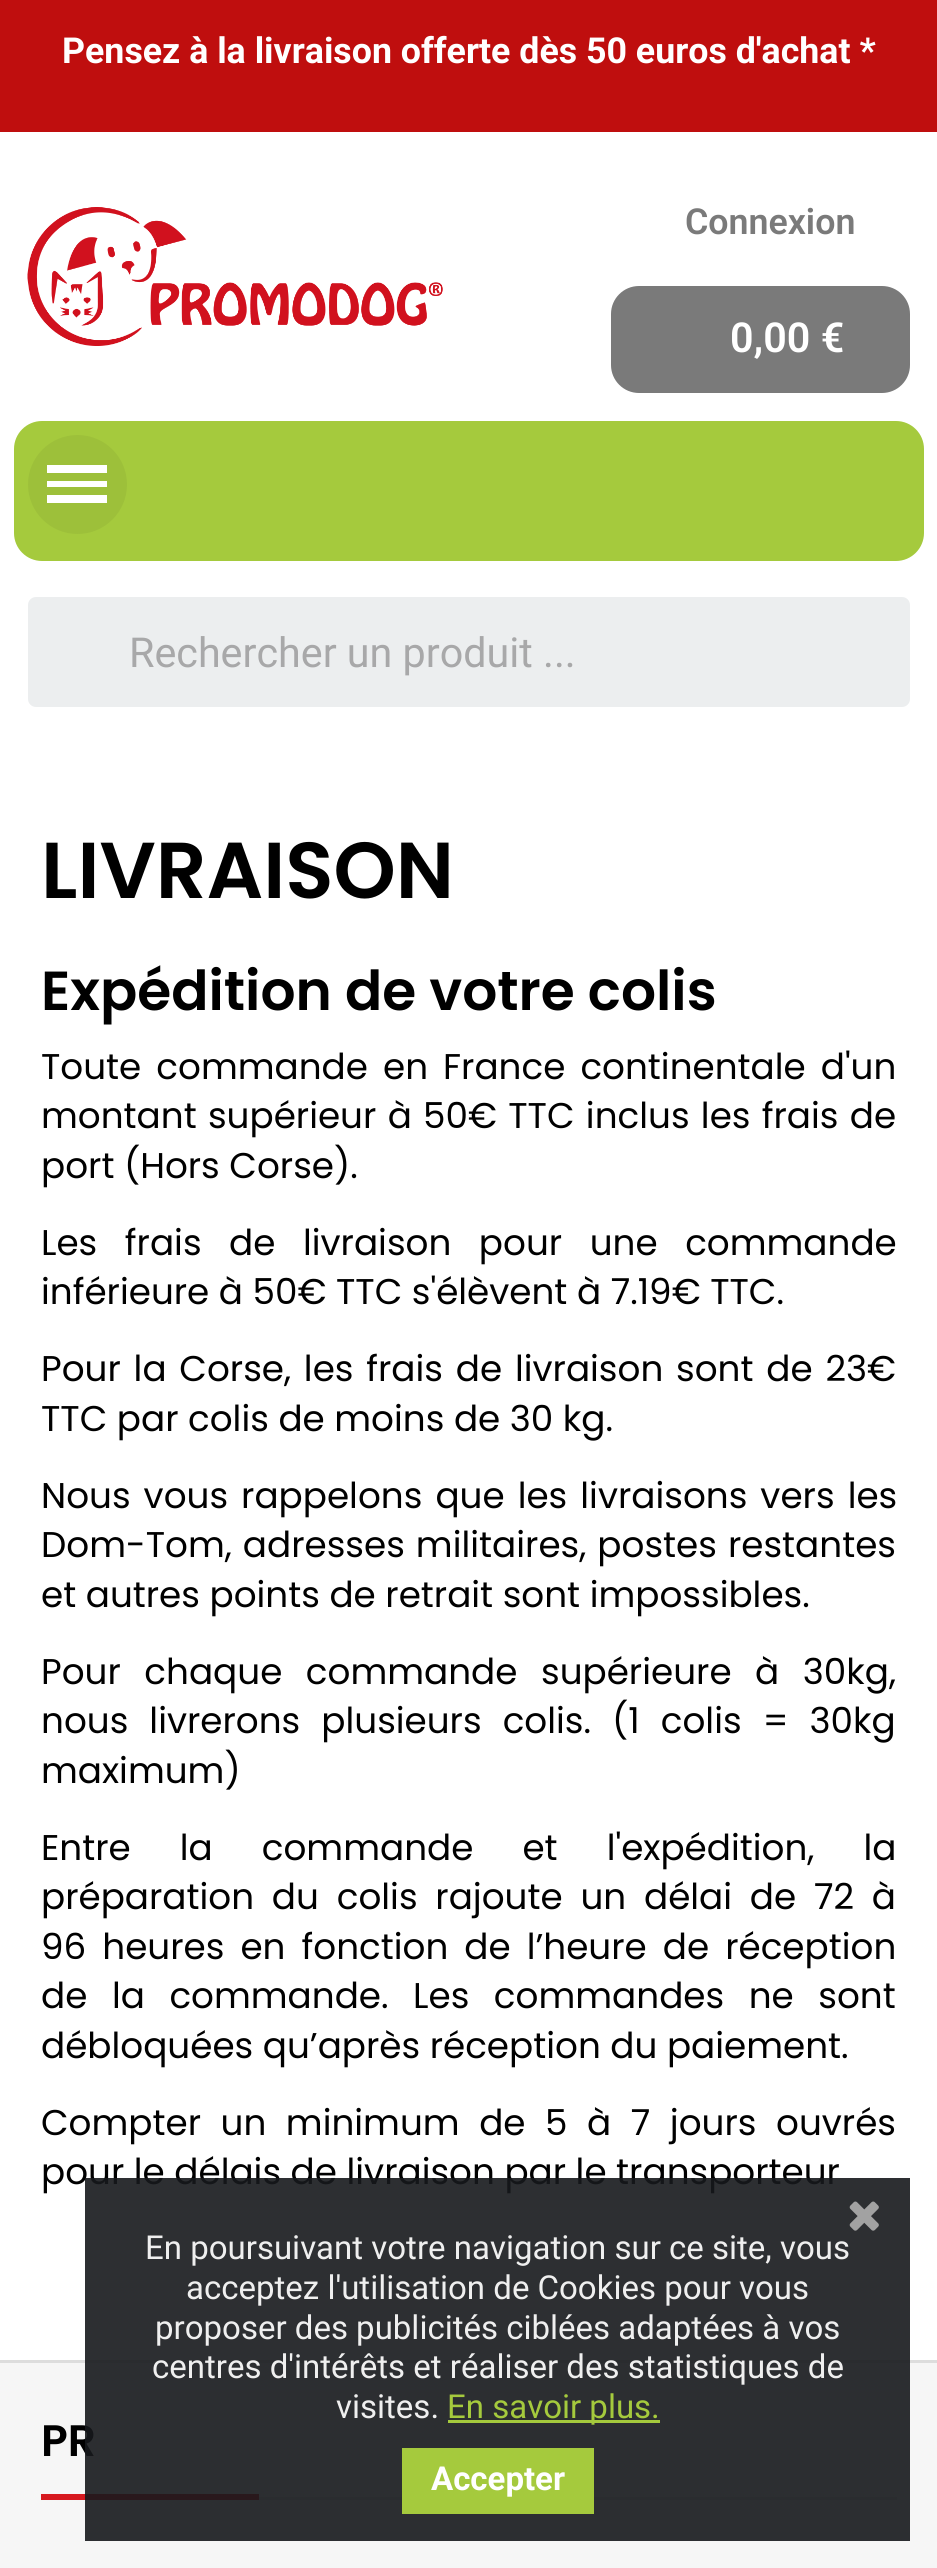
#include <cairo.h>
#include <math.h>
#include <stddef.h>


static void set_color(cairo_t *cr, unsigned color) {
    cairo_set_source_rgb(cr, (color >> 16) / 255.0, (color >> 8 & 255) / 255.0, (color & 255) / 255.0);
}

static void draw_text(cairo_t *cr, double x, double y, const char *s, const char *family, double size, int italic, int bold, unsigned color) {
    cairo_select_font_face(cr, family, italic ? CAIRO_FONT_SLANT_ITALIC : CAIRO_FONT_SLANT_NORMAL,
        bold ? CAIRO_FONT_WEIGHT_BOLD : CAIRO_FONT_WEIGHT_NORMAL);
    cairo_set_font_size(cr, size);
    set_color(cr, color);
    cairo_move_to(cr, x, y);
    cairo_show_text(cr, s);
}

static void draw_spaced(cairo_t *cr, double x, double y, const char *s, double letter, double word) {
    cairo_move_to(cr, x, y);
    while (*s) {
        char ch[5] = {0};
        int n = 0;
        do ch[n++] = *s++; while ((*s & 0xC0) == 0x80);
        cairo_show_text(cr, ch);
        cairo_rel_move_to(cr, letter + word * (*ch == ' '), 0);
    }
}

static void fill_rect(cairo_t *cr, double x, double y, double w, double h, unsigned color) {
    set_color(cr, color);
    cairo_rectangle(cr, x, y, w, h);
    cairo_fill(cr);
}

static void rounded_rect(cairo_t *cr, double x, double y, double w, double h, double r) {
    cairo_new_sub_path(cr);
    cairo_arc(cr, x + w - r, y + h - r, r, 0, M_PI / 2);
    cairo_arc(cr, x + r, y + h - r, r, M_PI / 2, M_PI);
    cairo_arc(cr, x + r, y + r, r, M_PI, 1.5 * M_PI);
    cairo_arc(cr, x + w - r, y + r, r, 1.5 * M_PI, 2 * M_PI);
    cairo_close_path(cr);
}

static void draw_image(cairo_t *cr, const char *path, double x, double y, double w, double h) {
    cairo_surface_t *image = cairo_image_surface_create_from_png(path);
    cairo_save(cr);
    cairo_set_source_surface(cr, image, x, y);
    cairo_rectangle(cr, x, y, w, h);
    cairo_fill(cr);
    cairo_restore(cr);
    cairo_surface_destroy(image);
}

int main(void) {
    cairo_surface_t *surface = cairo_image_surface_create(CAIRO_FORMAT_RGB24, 937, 2568);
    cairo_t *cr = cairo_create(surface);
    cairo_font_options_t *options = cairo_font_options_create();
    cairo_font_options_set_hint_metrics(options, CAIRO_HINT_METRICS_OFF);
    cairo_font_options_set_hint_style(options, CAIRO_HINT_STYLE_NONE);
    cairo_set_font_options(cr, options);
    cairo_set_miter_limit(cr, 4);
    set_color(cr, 0xFFFFFF);
    cairo_paint(cr);
    fill_rect(cr, 0, 0, 937, 132, 0xBF0E0E);
    draw_text(cr, 62, 63, "Pensez à la livraison offerte dès 50 euros d'achat *", "Roboto", 35.75, 0, 1, 0xFFFFFF);
    draw_image(cr, "assets/img1.png", 27, 207, 416, 139);
    draw_text(cr, 685, 234, "Connexion", "Roboto SemiBold", 35.75, 0, 0, 0x7A7A7A);
    rounded_rect(cr, 611, 286, 299, 107, 28);
    cairo_fill(cr);
    draw_text(cr, 730, 352, "0,00 €", "Roboto SemiBold", 41.25, 0, 0, 0xFFFFFF);
    set_color(cr, 0xA5CA3D);
    rounded_rect(cr, 14, 421, 910, 140, 28);
    cairo_fill(cr);
    set_color(cr, 0x9DC03A);
    cairo_arc(cr, 77.5, 484.5, 49.5, 0, 2 * M_PI);
    cairo_fill(cr);
    fill_rect(cr, 47, 481, 60, 6, 0xFFFFFF);
    fill_rect(cr, 47, 465, 60, 8, 0xFFFFFF);
    fill_rect(cr, 47, 495, 60, 8, 0xFFFFFF);
    set_color(cr, 0xECEEEF);
    rounded_rect(cr, 28, 597, 882, 110, 8);
    cairo_fill(cr);
    draw_text(cr, 129, 667, "Rechercher un produit ...", "Roboto", 41.25, 0, 0, 0xA8A8A9);
    draw_text(cr, 41, 898, "LIVRAISON", "Poppins SemiBold", 79.25, 0, 0, 0x000000);
    draw_text(cr, 41, 1010, "Expédition de votre colis", "Poppins SemiBold", 55, 0, 0, 0x000000);
    cairo_select_font_face(cr, "Poppins", CAIRO_FONT_SLANT_NORMAL, CAIRO_FONT_WEIGHT_NORMAL);
    cairo_set_font_size(cr, 35.75);
    draw_spaced(cr, 41, 1079, "Toute commande en France continentale d'un", 0, 5.5);
    draw_spaced(cr, 41, 1128, "montant supérieur à 50€ TTC inclus les frais de", 0, 1.75);
    draw_text(cr, 41, 1178, "port (Hors Corse).", "Poppins", 35.75, 0, 0, 0x000000);
    draw_spaced(cr, 41, 1255, "Les frais de livraison pour une commande", 0, 18);
    draw_text(cr, 41, 1304, "inférieure à 50€ TTC s'élèvent à 7.19€ TTC.", "Poppins", 35.75, 0, 0, 0x000000);
    draw_spaced(cr, 41, 1381, "Pour la Corse, les frais de livraison sont de 23€", 0, 3.25);
    draw_text(cr, 41, 1431, "TTC par colis de moins de 30 kg.", "Poppins", 35.75, 0, 0, 0x000000);
    draw_spaced(cr, 41, 1508, "Nous vous rappelons que les livraisons vers les", 0, 3.5);
    draw_spaced(cr, 41, 1557, "Dom-Tom, adresses militaires, postes restantes", 0, 1.5);
    draw_text(cr, 41, 1607, "et autres points de retrait sont impossibles.", "Poppins", 35.75, 0, 0, 0x000000);
    draw_spaced(cr, 41, 1684, "Pour chaque commande supérieure à 30kg,", 0, 14);
    draw_spaced(cr, 41, 1733, "nous livrerons plusieurs colis. (1 colis = 30kg", 0, 11.5);
    draw_text(cr, 41, 1783, "maximum)", "Poppins", 35.75, 0, 0, 0x000000);
    draw_spaced(cr, 41, 1860, "Entre la commande et l'expédition, la", 0, 39.5);
    draw_spaced(cr, 41, 1909, "préparation du colis rajoute un délai de 72 à", 0, 8.25);
    draw_spaced(cr, 41, 1959, "96 heures en fonction de l’heure de réception", 0, 6.5);
    draw_spaced(cr, 41, 2008, "de la commande. Les commandes ne sont", 0, 15);
    draw_text(cr, 41, 2058, "débloquées qu’après réception du paiement.", "Poppins", 35.75, 0, 0, 0x000000);
    draw_spaced(cr, 41, 2135, "Compter un minimum de 5 à 7 jours ouvrés", 0, 10);
    draw_text(cr, 41, 2184, "pour le délais de livraison par le transporteur", "Poppins", 35.75, 0, 0, 0x000000);
    fill_rect(cr, 0, 2363, 937, 205, 0xF6F6F6);
    fill_rect(cr, 0, 2360, 937, 3, 0xDDDDDD);
    fill_rect(cr, 259, 2497, 638, 3, 0xDDDDDD);
    fill_rect(cr, 41, 2494, 218, 6, 0xD7191F);
    draw_text(cr, 41, 2456, "PR", "Poppins SemiBold", 44, 0, 0, 0x000000);
    cairo_set_source_rgba(cr, 0.09, 0.098, 0.11, 0.9);
    cairo_rectangle(cr, 85, 2178, 825, 363);
    cairo_fill(cr);
    draw_image(cr, "assets/img2.png", 849, 2201, 30, 30);
    draw_text(cr, 145, 2259, "En poursuivant votre navigation sur ce site, vous", "Roboto", 33, 0, 0, 0xEFEFEF);
    draw_text(cr, 186, 2299, "acceptez l'utilisation de Cookies pour vous", "Roboto", 33, 0, 0, 0xEFEFEF);
    draw_text(cr, 155, 2339, "proposer des publicités ciblées adaptées à vos", "Roboto", 33, 0, 0, 0xEFEFEF);
    draw_text(cr, 152, 2378, "centres d'intérêts et réaliser des statistiques de", "Roboto", 33, 0, 0, 0xEFEFEF);
    draw_text(cr, 336, 2418, "visites.", "Roboto", 33, 0, 0, 0xEFEFEF);
    fill_rect(cr, 448, 2420, 212, 3, 0xA5CA3D);
    draw_text(cr, 447, 2418, "En savoir plus.", "Roboto", 33, 0, 0, 0xA5CA3D);
    fill_rect(cr, 402, 2448, 192, 66, 0xA5CA3D);
    draw_text(cr, 431, 2490, "Accepter", "Roboto", 33, 0, 1, 0xFFFFFF);
    cairo_surface_write_to_png(surface, "output.png");
    cairo_font_options_destroy(options);
    cairo_destroy(cr);
    cairo_surface_destroy(surface);
    return 0;
}
